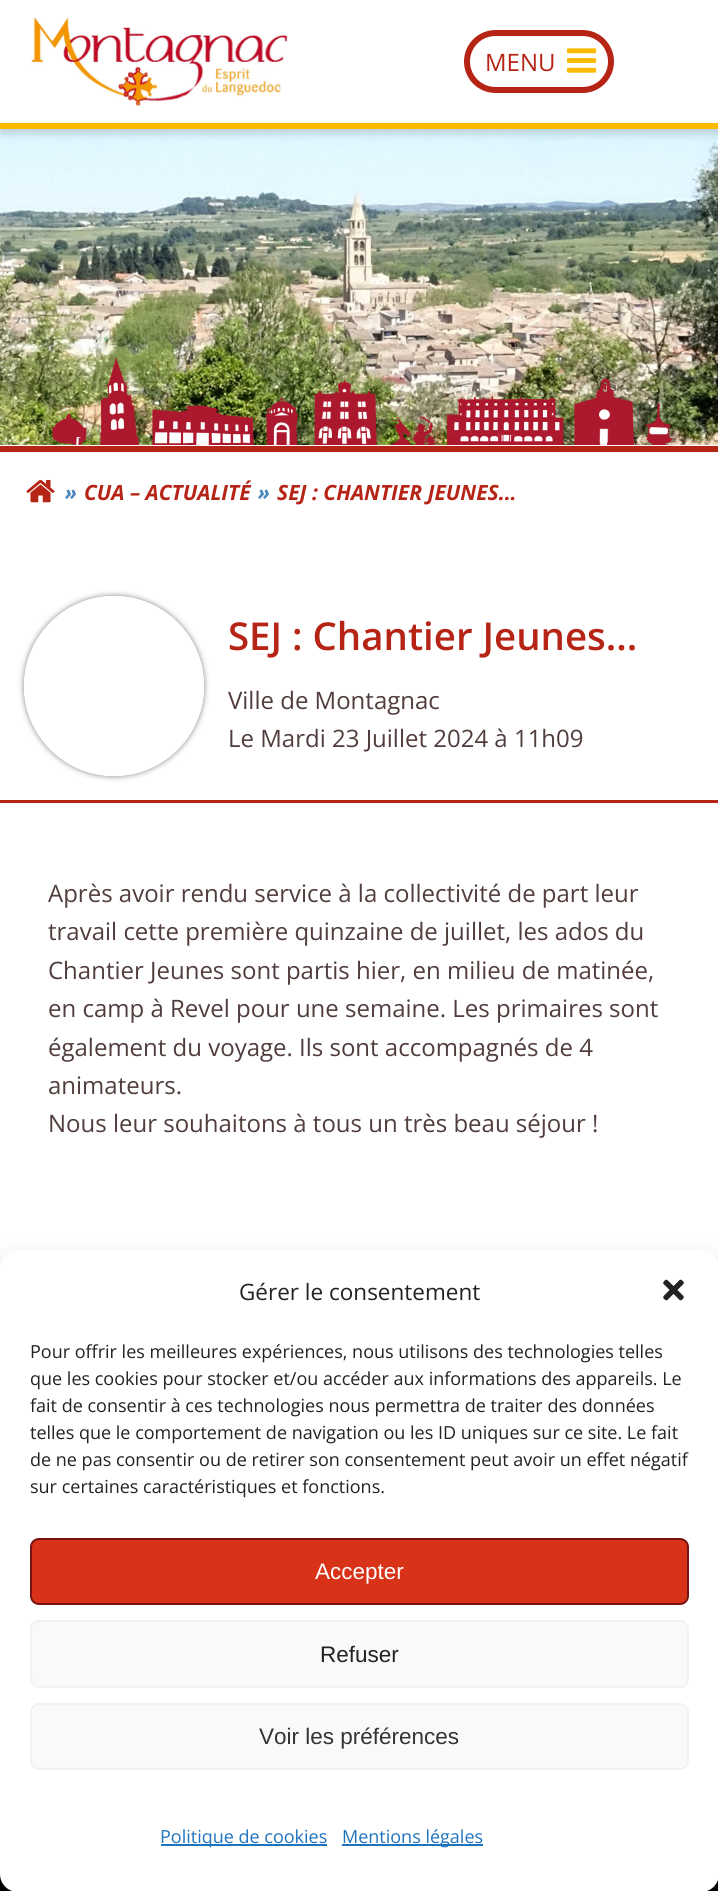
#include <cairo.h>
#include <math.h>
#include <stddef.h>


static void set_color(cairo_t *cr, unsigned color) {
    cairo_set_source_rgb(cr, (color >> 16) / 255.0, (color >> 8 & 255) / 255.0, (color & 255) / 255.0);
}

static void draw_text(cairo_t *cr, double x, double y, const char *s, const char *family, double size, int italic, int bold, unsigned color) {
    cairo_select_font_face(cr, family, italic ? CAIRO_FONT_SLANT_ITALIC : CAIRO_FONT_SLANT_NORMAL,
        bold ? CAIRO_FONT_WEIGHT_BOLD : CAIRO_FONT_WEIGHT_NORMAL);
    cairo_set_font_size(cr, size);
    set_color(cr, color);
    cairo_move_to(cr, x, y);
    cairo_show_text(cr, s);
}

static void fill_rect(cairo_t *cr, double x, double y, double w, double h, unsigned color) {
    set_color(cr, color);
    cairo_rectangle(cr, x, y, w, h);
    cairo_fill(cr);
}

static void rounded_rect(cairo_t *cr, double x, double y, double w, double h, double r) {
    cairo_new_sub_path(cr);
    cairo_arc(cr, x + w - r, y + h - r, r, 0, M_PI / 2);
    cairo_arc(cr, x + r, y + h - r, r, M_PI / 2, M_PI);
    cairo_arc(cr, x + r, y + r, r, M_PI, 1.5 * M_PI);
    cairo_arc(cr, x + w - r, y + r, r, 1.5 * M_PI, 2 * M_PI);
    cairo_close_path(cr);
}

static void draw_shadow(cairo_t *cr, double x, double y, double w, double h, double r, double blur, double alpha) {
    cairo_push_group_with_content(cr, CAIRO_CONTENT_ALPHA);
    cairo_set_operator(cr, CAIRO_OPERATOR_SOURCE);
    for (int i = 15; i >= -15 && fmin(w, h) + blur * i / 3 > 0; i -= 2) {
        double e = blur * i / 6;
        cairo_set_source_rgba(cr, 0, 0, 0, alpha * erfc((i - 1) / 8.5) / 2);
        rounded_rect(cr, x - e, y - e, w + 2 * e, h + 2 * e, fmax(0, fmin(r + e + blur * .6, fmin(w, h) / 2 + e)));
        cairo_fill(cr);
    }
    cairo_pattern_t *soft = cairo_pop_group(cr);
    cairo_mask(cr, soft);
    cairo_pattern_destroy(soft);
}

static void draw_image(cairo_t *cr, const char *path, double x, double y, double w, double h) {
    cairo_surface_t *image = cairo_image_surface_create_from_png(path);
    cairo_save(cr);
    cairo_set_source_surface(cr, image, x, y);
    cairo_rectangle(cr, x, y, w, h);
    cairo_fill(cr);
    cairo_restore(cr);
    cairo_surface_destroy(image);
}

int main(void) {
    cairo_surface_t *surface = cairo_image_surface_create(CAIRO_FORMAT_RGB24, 718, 1891);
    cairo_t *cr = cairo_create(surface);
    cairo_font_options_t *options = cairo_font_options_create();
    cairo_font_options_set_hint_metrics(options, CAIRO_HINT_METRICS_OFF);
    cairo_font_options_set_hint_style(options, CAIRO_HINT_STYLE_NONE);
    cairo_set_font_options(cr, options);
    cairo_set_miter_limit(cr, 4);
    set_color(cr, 0xFFFFFF);
    cairo_paint(cr);
    draw_image(cr, "assets/img3.png", 0, 129, 718, 316);
    set_color(cr, 0x000000);
    draw_shadow(cr, 0, 5, 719, 129, 0, 4.5, 0.16);
    fill_rect(cr, 0, 0, 718, 123, 0xFFFFFF);
    fill_rect(cr, 0, 123, 718, 6, 0xFBBA00);
    draw_image(cr, "assets/img1.png", 30, 17, 258, 89);
    rounded_rect(cr, 467, 33, 144, 57, 28.5);
    set_color(cr, 0xB62415);
    cairo_set_line_width(cr, 6);
    cairo_stroke(cr);
    draw_text(cr, 485, 71, "MENU", "Open Sans", 24, 0, 0, 0xB62415);
    draw_image(cr, "assets/img2.png", 567, 48, 30, 25);
    fill_rect(cr, 0, 446, 718, 6, 0xB62415);
    draw_image(cr, "assets/img4.png", 51, 358, 628, 87);
    draw_image(cr, "assets/img5.png", 26, 479, 29, 24);
    draw_text(cr, 65, 500, "»", "Open Sans", 21, 1, 1, 0x4F87BF);
    draw_text(cr, 84, 500, "CUA – ACTUALITÉ", "Open Sans", 21, 1, 1, 0xB62415);
    draw_text(cr, 258, 500, "»", "Open Sans", 21, 1, 1, 0x4F87BF);
    draw_text(cr, 277, 500, "SEJ : CHANTIER JEUNES...", "Open Sans", 21, 1, 1, 0xB62415);
    fill_rect(cr, 0, 800, 718, 3, 0xB62415);
    cairo_save(cr);
    cairo_set_fill_rule(cr, CAIRO_FILL_RULE_EVEN_ODD);
    cairo_new_path(cr);
    cairo_move_to(cr, 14, 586);
    cairo_line_to(cr, 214, 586);
    cairo_line_to(cr, 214, 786);
    cairo_line_to(cr, 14, 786);
    cairo_close_path(cr);
    cairo_move_to(cr, 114, 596);
    cairo_curve_to(cr, 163.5, 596, 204, 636.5, 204, 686);
    cairo_curve_to(cr, 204, 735.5, 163.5, 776, 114, 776);
    cairo_curve_to(cr, 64.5, 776, 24, 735.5, 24, 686);
    cairo_curve_to(cr, 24, 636.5, 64.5, 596, 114, 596);
    cairo_close_path(cr);
    cairo_clip(cr);
    set_color(cr, 0x000000);
    draw_shadow(cr, 24, 596, 180, 180, 90, 3, 0.5);
    cairo_restore(cr);
    cairo_arc(cr, 114, 686, 87, 0, 2 * M_PI);
    set_color(cr, 0xFFFFFF);
    cairo_stroke(cr);
    draw_text(cr, 228, 650, "SEJ : Chantier Jeunes...", "Open Sans SemiBold", 38.4, 0, 0, 0xB62415);
    draw_text(cr, 228, 709, "Ville de Montagnac", "Open Sans", 24, 0, 0, 0x523D3D);
    draw_text(cr, 228, 747, "Le Mardi 23 Juillet 2024 à 11h09", "Open Sans", 24, 0, 0, 0x523D3D);
    draw_text(cr, 48, 902, "Après avoir rendu service à la collectivité de part leur", "Open Sans", 24, 0, 0, 0x523D3D);
    draw_text(cr, 48, 940, "travail cette première quinzaine de juillet, les ados du", "Open Sans", 24, 0, 0, 0x523D3D);
    draw_text(cr, 48, 979, "Chantier Jeunes sont partis hier, en milieu de matinée,", "Open Sans", 24, 0, 0, 0x523D3D);
    draw_text(cr, 48, 1017, "en camp à Revel pour une semaine. Les primaires sont", "Open Sans", 24, 0, 0, 0x523D3D);
    draw_text(cr, 48, 1056, "également du voyage. Ils sont accompagnés de 4", "Open Sans", 24, 0, 0, 0x523D3D);
    draw_text(cr, 48, 1094, "animateurs.", "Open Sans", 24, 0, 0, 0x523D3D);
    draw_text(cr, 48, 1132, "Nous leur souhaitons à tous un très beau séjour !", "Open Sans", 24, 0, 0, 0x523D3D);
    fill_rect(cr, 0, 1874, 718, 17, 0x000000);
    set_color(cr, 0x000000);
    draw_shadow(cr, 0, 1259, 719, 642, 18, 4.5, 0.23);
    draw_shadow(cr, 0, 1265, 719, 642, 18, 15, 0.19);
    set_color(cr, 0xFFFFFF);
    rounded_rect(cr, 0, 1250, 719, 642, 18);
    cairo_fill(cr);
    draw_text(cr, 239, 1300, "Gérer le consentement", "Open Sans", 22.5, 0, 0, 0x222222);
    draw_image(cr, "assets/img6.png", 663, 1279, 21, 22);
    draw_text(cr, 30, 1358, "Pour offrir les meilleures expériences, nous utilisons des technologies telles", "Open Sans", 18, 0, 0, 0x222222);
    draw_text(cr, 30, 1385, "que les cookies pour stocker et/ou accéder aux informations des appareils. Le", "Open Sans", 18, 0, 0, 0x222222);
    draw_text(cr, 30, 1412, "fait de consentir à ces technologies nous permettra de traiter des données", "Open Sans", 18, 0, 0, 0x222222);
    draw_text(cr, 30, 1439, "telles que le comportement de navigation ou les ID uniques sur ce site. Le fait", "Open Sans", 18, 0, 0, 0x222222);
    draw_text(cr, 30, 1466, "de ne pas consentir ou de retirer son consentement peut avoir un effet négatif", "Open Sans", 18, 0, 0, 0x222222);
    draw_text(cr, 30, 1493, "sur certaines caractéristiques et fonctions.", "Open Sans", 18, 0, 0, 0x222222);
    set_color(cr, 0xD83318);
    rounded_rect(cr, 31, 1539, 657, 65, 8);
    cairo_fill_preserve(cr);
    set_color(cr, 0x771310);
    cairo_set_line_width(cr, 2);
    cairo_stroke(cr);
    draw_text(cr, 315, 1579, "Accepter", "Liberation Sans", 22.5, 0, 0, 0xFFFFFF);
    set_color(cr, 0xF9F9F9);
    rounded_rect(cr, 31, 1621, 657, 66, 8);
    cairo_fill_preserve(cr);
    set_color(cr, 0xF2F2F2);
    cairo_stroke(cr);
    draw_text(cr, 320, 1662, "Refuser", "Liberation Sans", 22.5, 0, 0, 0x222222);
    set_color(cr, 0xF9F9F9);
    rounded_rect(cr, 31, 1704, 657, 65, 8);
    cairo_fill_preserve(cr);
    set_color(cr, 0xF2F2F2);
    cairo_stroke(cr);
    draw_text(cr, 259, 1744, "Voir les préférences", "Liberation Sans", 22.5, 0, 0, 0x333333);
    fill_rect(cr, 161, 1844, 166, 2, 0x1E73BE);
    draw_text(cr, 160, 1843, "Politique de cookies", "Open Sans", 18, 0, 0, 0x1E73BE);
    fill_rect(cr, 342, 1844, 141, 2, 0x1E73BE);
    draw_text(cr, 342, 1843, "Mentions légales", "Open Sans", 18, 0, 0, 0x1E73BE);
    cairo_surface_write_to_png(surface, "output.png");
    cairo_font_options_destroy(options);
    cairo_destroy(cr);
    cairo_surface_destroy(surface);
    return 0;
}
